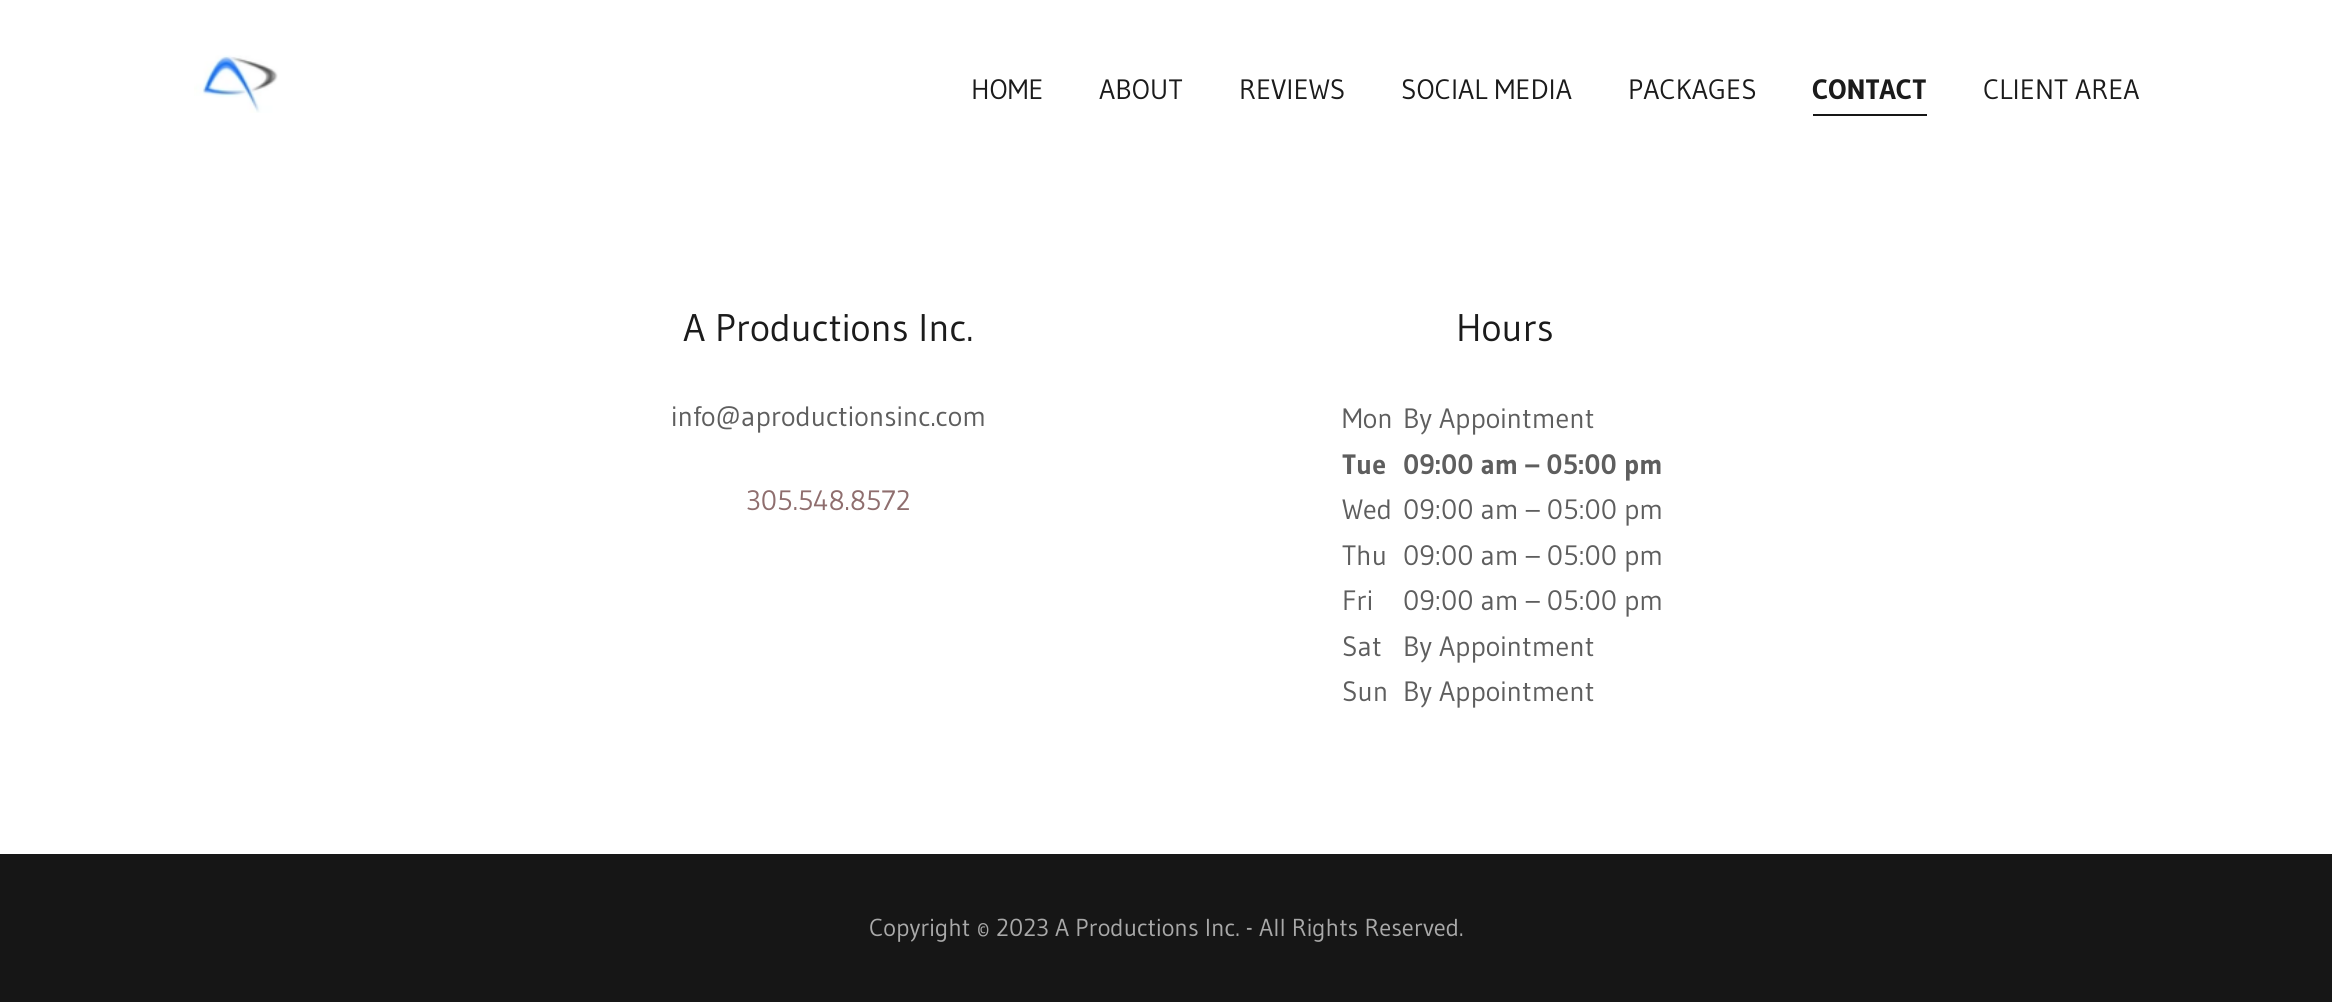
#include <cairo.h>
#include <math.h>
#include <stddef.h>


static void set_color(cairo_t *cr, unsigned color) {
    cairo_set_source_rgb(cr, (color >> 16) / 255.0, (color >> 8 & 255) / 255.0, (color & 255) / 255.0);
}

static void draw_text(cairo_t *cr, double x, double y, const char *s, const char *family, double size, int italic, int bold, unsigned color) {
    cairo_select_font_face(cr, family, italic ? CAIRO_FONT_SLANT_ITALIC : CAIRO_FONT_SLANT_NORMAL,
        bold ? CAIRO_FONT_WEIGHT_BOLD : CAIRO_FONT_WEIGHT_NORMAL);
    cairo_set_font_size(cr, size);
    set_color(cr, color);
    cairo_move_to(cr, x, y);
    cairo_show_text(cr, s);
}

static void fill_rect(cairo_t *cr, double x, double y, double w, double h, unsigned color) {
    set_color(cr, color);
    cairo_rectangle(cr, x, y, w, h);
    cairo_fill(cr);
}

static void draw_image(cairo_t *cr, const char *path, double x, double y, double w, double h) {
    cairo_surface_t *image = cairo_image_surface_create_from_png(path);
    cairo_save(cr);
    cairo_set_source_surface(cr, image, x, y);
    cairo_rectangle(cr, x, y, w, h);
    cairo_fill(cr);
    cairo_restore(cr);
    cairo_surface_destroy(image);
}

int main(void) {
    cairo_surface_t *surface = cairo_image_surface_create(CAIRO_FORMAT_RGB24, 2332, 1002);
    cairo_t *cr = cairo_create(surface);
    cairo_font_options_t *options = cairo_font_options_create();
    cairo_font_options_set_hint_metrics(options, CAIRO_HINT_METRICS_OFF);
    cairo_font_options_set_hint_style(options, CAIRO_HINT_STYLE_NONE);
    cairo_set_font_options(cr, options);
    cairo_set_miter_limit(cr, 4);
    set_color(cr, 0x161616);
    cairo_paint(cr);
    fill_rect(cr, 0, 0, 2332, 854, 0xFFFFFF);
    draw_image(cr, "assets/img1.png", 194, 55, 84, 58);
    draw_text(cr, 971, 99, "HOME", "Gudea", 28, 0, 0, 0x1B1B1B);
    draw_text(cr, 1099, 99, "ABOUT", "Gudea", 28, 0, 0, 0x1B1B1B);
    draw_text(cr, 1239, 99, "REVIEWS", "Gudea", 28, 0, 0, 0x1B1B1B);
    draw_text(cr, 1401, 99, "SOCIAL MEDIA", "Gudea", 28, 0, 0, 0x1B1B1B);
    draw_text(cr, 1628, 99, "PACKAGES", "Gudea", 28, 0, 0, 0x1B1B1B);
    fill_rect(cr, 1813, 114, 114, 2, 0x161616);
    draw_text(cr, 1812, 99, "CONTACT", "Gudea", 28, 0, 1, 0x1B1B1B);
    draw_text(cr, 1983, 99, "CLIENT AREA", "Gudea", 28, 0, 0, 0x1B1B1B);
    draw_text(cr, 683, 341, "A Productions Inc.", "Gudea", 38.5, 0, 0, 0x1B1B1B);
    draw_text(cr, 671, 426, "info@aproductionsinc.com", "Gudea", 28, 0, 0, 0x5E5E5E);
    draw_text(cr, 746, 510, "305.548.8572", "Gudea", 28, 0, 0, 0x8F6E6E);
    draw_text(cr, 1456, 341, "Hours", "Gudea", 38.5, 0, 0, 0x1B1B1B);
    draw_text(cr, 1342, 428, "Mon", "Gudea", 28, 0, 0, 0x5E5E5E);
    draw_text(cr, 1403, 428, "By Appointment", "Gudea", 28, 0, 0, 0x5E5E5E);
    draw_text(cr, 1342, 474, "Tue", "Gudea", 28, 0, 1, 0x5E5E5E);
    draw_text(cr, 1403, 474, "09:00 am – 05:00 pm", "Gudea", 28, 0, 1, 0x5E5E5E);
    draw_text(cr, 1342, 519, "Wed", "Gudea", 28, 0, 0, 0x5E5E5E);
    draw_text(cr, 1403, 519, "09:00 am – 05:00 pm", "Gudea", 28, 0, 0, 0x5E5E5E);
    draw_text(cr, 1342, 565, "Thu", "Gudea", 28, 0, 0, 0x5E5E5E);
    draw_text(cr, 1403, 565, "09:00 am – 05:00 pm", "Gudea", 28, 0, 0, 0x5E5E5E);
    draw_text(cr, 1342, 610, "Fri", "Gudea", 28, 0, 0, 0x5E5E5E);
    draw_text(cr, 1403, 610, "09:00 am – 05:00 pm", "Gudea", 28, 0, 0, 0x5E5E5E);
    draw_text(cr, 1342, 656, "Sat", "Gudea", 28, 0, 0, 0x5E5E5E);
    draw_text(cr, 1403, 656, "By Appointment", "Gudea", 28, 0, 0, 0x5E5E5E);
    draw_text(cr, 1342, 701, "Sun", "Gudea", 28, 0, 0, 0x5E5E5E);
    draw_text(cr, 1403, 701, "By Appointment", "Gudea", 28, 0, 0, 0x5E5E5E);
    draw_text(cr, 869, 936, "Copyright © 2023 A Productions Inc. - All Rights Reserved.", "Gudea", 24.5, 0, 0, 0xA9A9A9);
    cairo_surface_write_to_png(surface, "output.png");
    cairo_font_options_destroy(options);
    cairo_destroy(cr);
    cairo_surface_destroy(surface);
    return 0;
}
